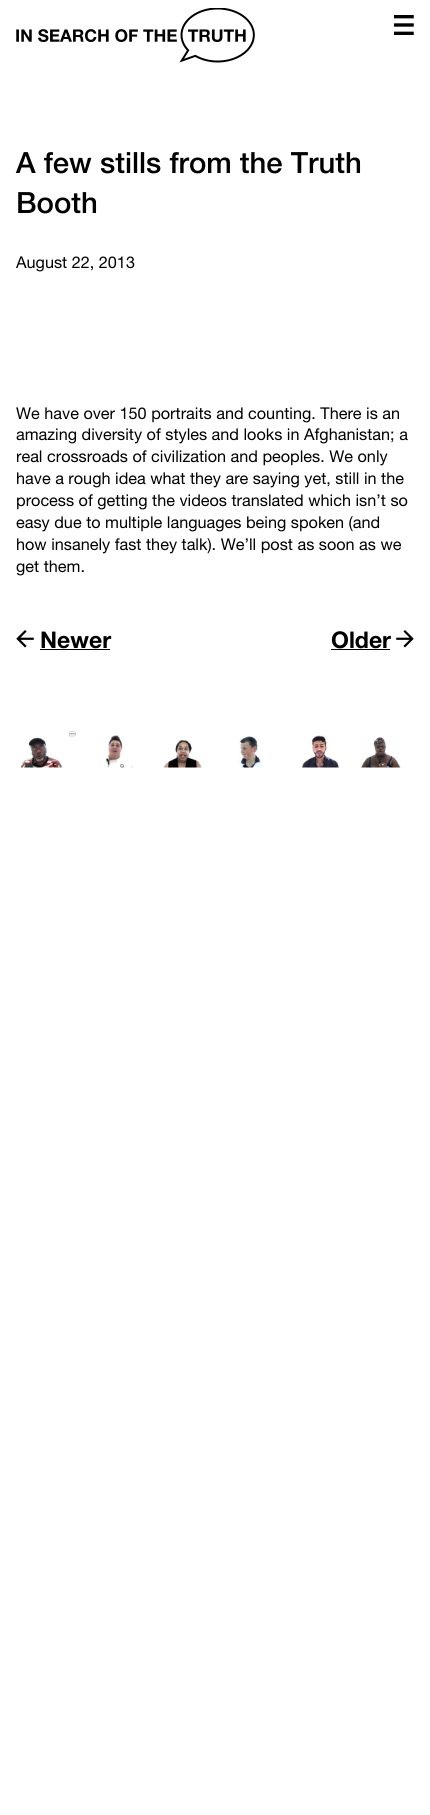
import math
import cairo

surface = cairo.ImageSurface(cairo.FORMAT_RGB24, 430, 1815)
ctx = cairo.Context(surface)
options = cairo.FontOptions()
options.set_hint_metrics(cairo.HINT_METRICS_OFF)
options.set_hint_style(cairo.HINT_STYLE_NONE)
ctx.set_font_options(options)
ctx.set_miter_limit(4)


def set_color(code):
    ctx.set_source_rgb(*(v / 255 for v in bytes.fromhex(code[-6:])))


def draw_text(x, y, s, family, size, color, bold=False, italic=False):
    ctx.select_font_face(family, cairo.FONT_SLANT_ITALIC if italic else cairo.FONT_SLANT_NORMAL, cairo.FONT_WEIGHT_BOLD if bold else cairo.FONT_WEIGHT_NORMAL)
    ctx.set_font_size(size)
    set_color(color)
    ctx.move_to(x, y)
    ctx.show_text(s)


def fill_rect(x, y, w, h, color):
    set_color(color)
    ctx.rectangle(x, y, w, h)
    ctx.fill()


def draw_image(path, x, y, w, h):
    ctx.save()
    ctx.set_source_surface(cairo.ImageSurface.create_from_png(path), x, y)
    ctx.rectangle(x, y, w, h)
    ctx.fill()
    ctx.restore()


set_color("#ffffff")
ctx.paint()
draw_image("assets/img1.png", 16, 8, 239, 55)
draw_image("assets/img2.png", 394, 15, 20, 20)
draw_text(16, 173, "A few stills from the Truth", "Helvetica Neue Medium", 29.25, "#000000")
draw_text(16, 213, "Booth", "Helvetica Neue Medium", 29.25, "#000000")
draw_text(16, 268, "August 22, 2013", "Helvetica Neue", 16.25, "#000000")
draw_text(16, 419, "We have over 150 portraits and counting. There is an", "Helvetica Neue", 16.25, "#000000")
draw_text(16, 440, "amazing diversity of styles and looks in Afghanistan; a", "Helvetica Neue", 16.25, "#000000")
draw_text(16, 462, "real crossroads of civilization and peoples. We only", "Helvetica Neue", 16.25, "#000000")
draw_text(16, 484, "have a rough idea what they are saying yet, still in the", "Helvetica Neue", 16.25, "#000000")
draw_text(16, 506, "process of getting the videos translated which isn’t so", "Helvetica Neue", 16.25, "#000000")
draw_text(16, 528, "easy due to multiple languages being spoken (and", "Helvetica Neue", 16.25, "#000000")
draw_text(16, 550, "how insanely fast they talk). We’ll post as soon as we", "Helvetica Neue", 16.25, "#000000")
draw_text(16, 572, "get them.", "Helvetica Neue", 16.25, "#000000")
draw_image("assets/img3.png", 16, 630, 18, 18)
draw_text(40, 648, "Newer", "Helvetica Neue", 23, "#000000", bold=True)
fill_rect(40, 649, 70, 1, "#000000")
draw_text(331, 648, "Older", "Helvetica Neue", 23, "#000000", bold=True)
fill_rect(331, 649, 59, 1, "#000000")
draw_image("assets/img4.png", 396, 630, 18, 18)
draw_image("assets/img5.png", 20, 730, 56, 38)
draw_image("assets/img6.png", 97, 735, 37, 33)
draw_image("assets/img7.png", 163, 740, 39, 28)
draw_image("assets/img8.png", 238, 736, 26, 32)
draw_image("assets/img9.png", 302, 735, 37, 33)
draw_image("assets/img10.png", 361, 737, 40, 31)
surface.write_to_png("output.png")
